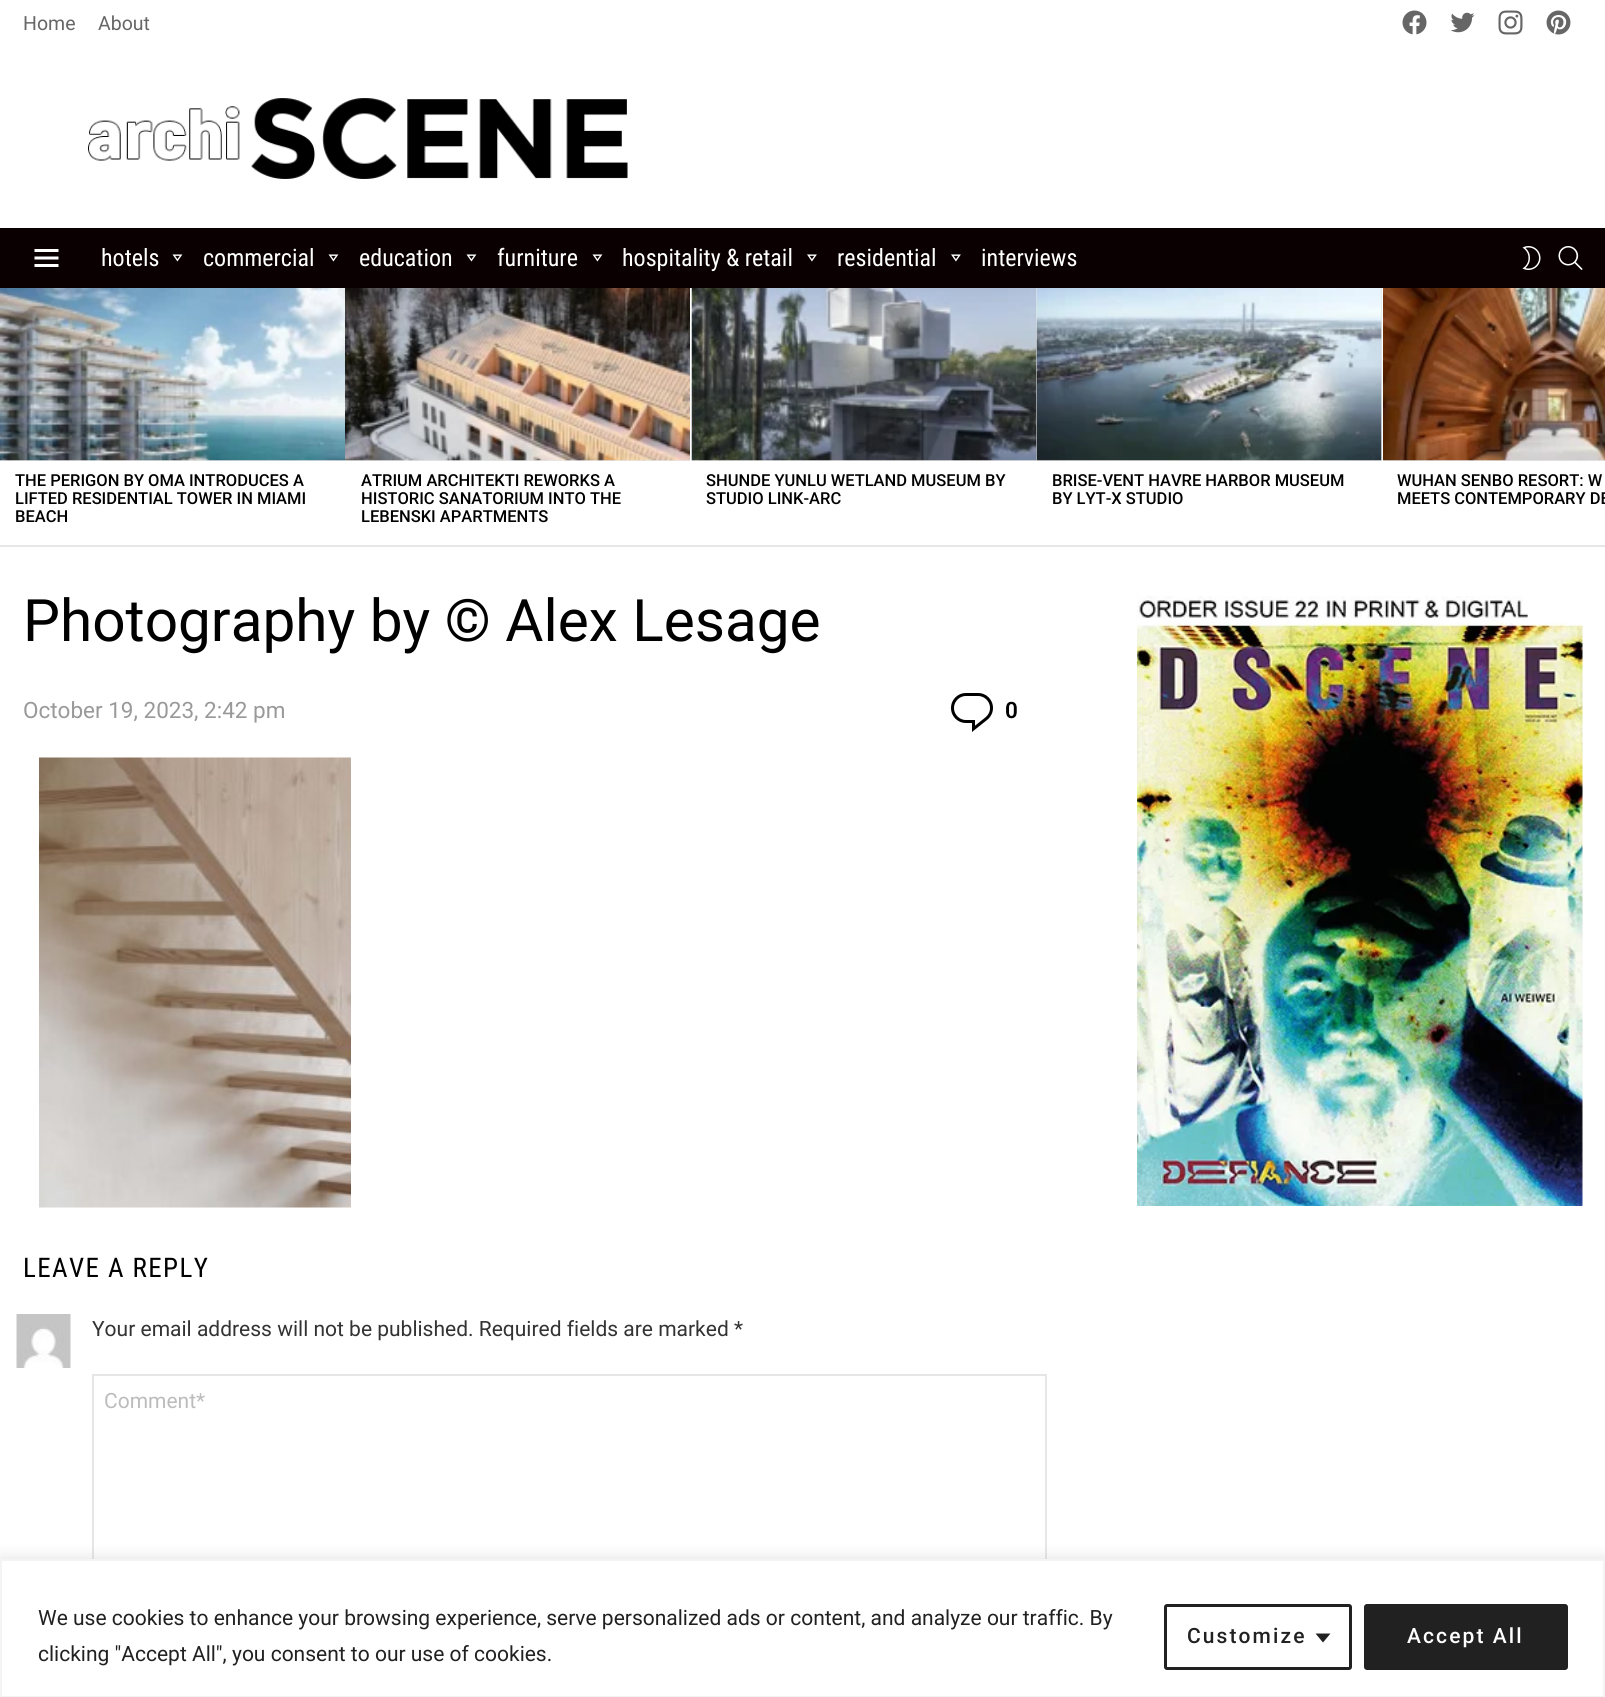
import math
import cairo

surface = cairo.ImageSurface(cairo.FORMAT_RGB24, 1605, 1697)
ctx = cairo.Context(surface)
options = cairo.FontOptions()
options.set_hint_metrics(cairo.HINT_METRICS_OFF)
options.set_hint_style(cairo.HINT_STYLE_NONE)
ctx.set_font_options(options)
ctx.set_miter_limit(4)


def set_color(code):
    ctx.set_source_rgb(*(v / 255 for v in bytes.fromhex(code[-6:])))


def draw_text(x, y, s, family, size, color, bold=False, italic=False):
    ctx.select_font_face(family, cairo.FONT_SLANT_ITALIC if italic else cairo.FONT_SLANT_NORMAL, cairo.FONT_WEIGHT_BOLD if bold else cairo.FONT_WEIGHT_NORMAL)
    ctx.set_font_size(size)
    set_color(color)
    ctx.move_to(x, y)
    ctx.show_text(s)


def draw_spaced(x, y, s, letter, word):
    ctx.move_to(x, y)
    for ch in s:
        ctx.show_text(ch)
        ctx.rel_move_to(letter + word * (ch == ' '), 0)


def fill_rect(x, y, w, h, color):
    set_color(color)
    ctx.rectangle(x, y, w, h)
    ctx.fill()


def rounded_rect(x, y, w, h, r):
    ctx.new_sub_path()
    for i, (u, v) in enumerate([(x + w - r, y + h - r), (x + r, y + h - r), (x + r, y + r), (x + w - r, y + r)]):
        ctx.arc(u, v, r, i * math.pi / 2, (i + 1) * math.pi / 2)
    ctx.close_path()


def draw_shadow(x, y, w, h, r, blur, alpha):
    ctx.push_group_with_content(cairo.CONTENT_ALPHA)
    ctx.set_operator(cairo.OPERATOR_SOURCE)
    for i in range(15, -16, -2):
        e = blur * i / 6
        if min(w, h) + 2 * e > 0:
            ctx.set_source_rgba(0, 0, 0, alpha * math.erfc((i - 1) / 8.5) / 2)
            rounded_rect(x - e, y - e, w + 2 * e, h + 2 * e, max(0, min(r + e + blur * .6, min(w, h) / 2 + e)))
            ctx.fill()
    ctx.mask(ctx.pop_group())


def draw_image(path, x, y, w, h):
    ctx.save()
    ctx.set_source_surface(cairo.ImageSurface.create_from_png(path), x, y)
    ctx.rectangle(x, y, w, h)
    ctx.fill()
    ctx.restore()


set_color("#ffffff")
ctx.paint()
draw_text(23, 30, "Home", "Roboto", 19.5, "#666666")
draw_text(98, 30, "About", "Roboto", 19.5, "#666666")
draw_image("assets/img1.png", 1402, 10, 25, 25)
draw_image("assets/img2.png", 1450, 12, 25, 21)
draw_image("assets/img3.png", 1498, 10, 25, 25)
draw_image("assets/img4.png", 1546, 10, 25, 25)
draw_image("assets/img5.png", 88, 98, 540, 81)
fill_rect(0, 228, 1605, 60, "#0a0002")
draw_image("assets/img6.png", 34, 249, 25, 18)
draw_text(101, 266, "hotels", "Roboto Condensed", 24, "#ffffff")
draw_image("assets/img7.png", 172, 254, 11, 8)
draw_text(203, 266, "commercial", "Roboto Condensed", 24, "#ffffff")
draw_image("assets/img7.png", 328, 254, 11, 8)
draw_text(359, 266, "education", "Roboto Condensed", 24, "#ffffff")
draw_image("assets/img7.png", 466, 254, 11, 8)
draw_text(497, 266, "furniture", "Roboto Condensed", 24, "#ffffff")
draw_image("assets/img7.png", 592, 254, 11, 8)
draw_text(622, 266, "hospitality & retail", "Roboto Condensed", 24, "#ffffff")
draw_image("assets/img8.png", 807, 254, 10, 8)
draw_text(837, 266, "residential", "Roboto Condensed", 24, "#ffffff")
draw_image("assets/img8.png", 951, 254, 10, 8)
draw_text(981, 266, "interviews", "Roboto Condensed", 24, "#ffffff")
draw_image("assets/img9.png", 1522, 246, 19, 24)
draw_image("assets/img10.png", 1558, 246, 25, 24)
fill_rect(0, 545, 1605, 2, "#e6e6e6")
fill_rect(0, 460, 690, 1, "#e6e6e6")
draw_image("assets/img11.png", 0, 288, 345, 173)
draw_text(15, 486, "THE PERIGON BY OMA INTRODUCES A", "Roboto Medium", 16.5, "#000000")
draw_text(15, 504, "LIFTED RESIDENTIAL TOWER IN MIAMI", "Roboto Medium", 16.5, "#000000")
draw_text(15, 522, "BEACH", "Roboto Medium", 16.5, "#000000")
draw_image("assets/img12.png", 345, 288, 345, 173)
draw_text(361, 486, "ATRIUM ARCHITEKTI REWORKS A", "Roboto Medium", 16.5, "#000000")
draw_text(361, 504, "HISTORIC SANATORIUM INTO THE", "Roboto Medium", 16.5, "#000000")
draw_text(361, 522, "LEBENSKI APARTMENTS", "Roboto Medium", 16.5, "#000000")
fill_rect(692, 288, 690, 173, "#e6e6e6")
draw_image("assets/img13.png", 691, 288, 346, 173)
draw_text(706, 486, "SHUNDE YUNLU WETLAND MUSEUM BY", "Roboto Medium", 16.5, "#000000")
draw_text(706, 504, "STUDIO LINK-ARC", "Roboto Medium", 16.5, "#000000")
draw_image("assets/img14.png", 1036, 288, 346, 173)
draw_text(1052, 486, "BRISE-VENT HAVRE HARBOR MUSEUM", "Roboto Medium", 16.5, "#000000")
draw_text(1052, 504, "BY LYT-X STUDIO", "Roboto Medium", 16.5, "#000000")
fill_rect(1383, 460, 222, 1, "#e6e6e6")
draw_image("assets/img15.png", 1383, 288, 222, 173)
draw_text(1397, 486, "WUHAN SENBO RESORT: W", "Roboto Medium", 16.5, "#000000")
draw_text(1397, 504, "MEETS CONTEMPORARY DE", "Roboto Medium", 16.5, "#000000")
draw_text(23, 641, "Photography by © Alex Lesage", "Roboto", 58.5, "#000000")
draw_text(23, 718, "October 19, 2023, 2:42 pm", "Roboto", 22.5, "#999999")
draw_image("assets/img16.png", 951, 693, 42, 39)
draw_text(1005, 718, "0", "Roboto SemiBold", 22.5, "#000000")
draw_image("assets/img17.png", 39, 757, 312, 451)
ctx.select_font_face("Roboto Condensed")
ctx.set_font_size(27)
draw_spaced(23, 1277, "LEAVE A REPLY", 1.4, 0)
draw_image("assets/img18.png", 16, 1314, 55, 54)
draw_text(92, 1336, "Your email address will not be published. Required fields are marked *", "Roboto", 21, "#333333")
ctx.rectangle(93, 1375, 953, 262)
set_color("#e6e6e6")
ctx.stroke()
draw_text(104, 1408, "Comment*", "Roboto", 21, "#bcbcbc")
draw_image("assets/img19.png", 1137, 596, 446, 610)
set_color("#acabab")
draw_shadow(0, 1557, 1605, 140, 0, 7.5, 0.3)
set_color("#ffffff")
ctx.rectangle(1, 1560, 1603, 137)
ctx.fill_preserve()
set_color("#f4f4f4")
ctx.stroke()
draw_text(38, 1625, "We use cookies to enhance your browsing experience, serve personalized ads or content, and analyze our traffic. By", "Roboto", 21, "#212121")
draw_text(38, 1661, "clicking \"Accept All\", you consent to our use of cookies.", "Roboto", 21, "#212121")
rounded_rect(1165.5, 1605.5, 185, 63, 1.5)
ctx.set_line_width(3)
ctx.stroke()
ctx.select_font_face("Roboto Medium")
draw_spaced(1187, 1643, "Customize", 2.1, 0)
ctx.new_path()
ctx.move_to(1315.5, 1633.5)
ctx.line_to(1330.5, 1633.5)
ctx.line_to(1323, 1642.5)
ctx.close_path()
ctx.fill()
rounded_rect(1365.5, 1605.5, 201, 63, 1.5)
ctx.fill_preserve()
ctx.stroke()
set_color("#ffffff")
draw_spaced(1407, 1643, "Accept All", 2.1, 0)
surface.write_to_png("output.png")
